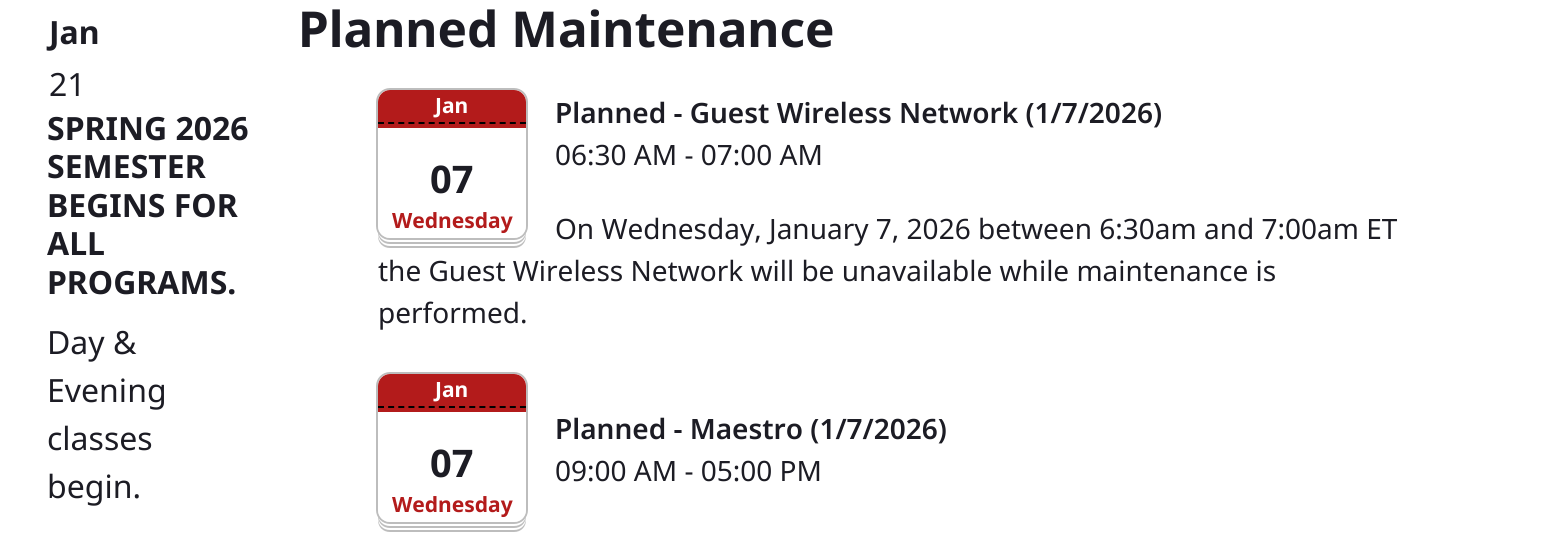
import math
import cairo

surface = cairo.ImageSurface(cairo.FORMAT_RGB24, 1555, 547)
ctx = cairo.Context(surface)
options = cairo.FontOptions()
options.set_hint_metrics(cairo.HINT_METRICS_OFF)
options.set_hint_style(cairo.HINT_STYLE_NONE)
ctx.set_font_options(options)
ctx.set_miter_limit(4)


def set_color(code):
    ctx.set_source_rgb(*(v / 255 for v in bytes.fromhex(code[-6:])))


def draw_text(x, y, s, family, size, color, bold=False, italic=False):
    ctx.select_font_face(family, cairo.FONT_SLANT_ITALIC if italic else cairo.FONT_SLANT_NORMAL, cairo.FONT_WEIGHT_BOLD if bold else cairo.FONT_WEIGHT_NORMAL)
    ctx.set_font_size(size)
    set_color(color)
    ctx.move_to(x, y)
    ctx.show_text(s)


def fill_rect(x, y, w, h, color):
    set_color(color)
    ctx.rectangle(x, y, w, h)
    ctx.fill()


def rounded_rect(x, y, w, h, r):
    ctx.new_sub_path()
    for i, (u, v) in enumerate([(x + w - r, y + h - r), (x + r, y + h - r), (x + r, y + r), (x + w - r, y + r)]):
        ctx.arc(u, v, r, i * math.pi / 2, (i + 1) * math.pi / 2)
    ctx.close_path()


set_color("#ffffff")
ctx.paint()
draw_text(49, 44, "Jan", "Noto Sans", 32, "#1c1c24", bold=True)
draw_text(49, 96, "21", "Noto Sans", 32, "#1c1c24")
draw_text(47, 140, "SPRING 2026", "Noto Sans", 32, "#1c1c24", bold=True)
draw_text(47, 178, "SEMESTER", "Noto Sans", 32, "#1c1c24", bold=True)
draw_text(47, 217, "BEGINS FOR", "Noto Sans", 32, "#1c1c24", bold=True)
draw_text(47, 255, "ALL", "Noto Sans", 32, "#1c1c24", bold=True)
draw_text(47, 294, "PROGRAMS.", "Noto Sans", 32, "#1c1c24", bold=True)
draw_text(47, 354, "Day &", "Noto Sans", 32, "#1c1c24")
draw_text(47, 402, "Evening", "Noto Sans", 32, "#1c1c24")
draw_text(47, 450, "classes", "Noto Sans", 32, "#1c1c24")
draw_text(47, 498, "begin.", "Noto Sans", 32, "#1c1c24")
draw_text(298, 47, "Planned Maintenance", "Noto Sans", 49.5, "#1c1c24", bold=True)
set_color("#bdbdbd")
ctx.new_path()
ctx.move_to(378, 225)
ctx.line_to(378, 236)
ctx.curve_to(378, 243, 383, 248, 390, 248)
ctx.line_to(514, 248)
ctx.curve_to(521, 248, 526, 243, 526, 236)
ctx.line_to(526, 225)
ctx.curve_to(526, 232, 520, 238, 513, 238)
ctx.line_to(391, 238)
ctx.curve_to(384, 238, 378, 232, 378, 225)
ctx.close_path()
ctx.fill()
set_color("#ffffff")
ctx.new_path()
ctx.move_to(378, 225)
ctx.line_to(378, 234)
ctx.curve_to(378, 241, 383, 246, 390, 246)
ctx.line_to(514, 246)
ctx.curve_to(521, 246, 526, 241, 526, 234)
ctx.line_to(526, 225)
ctx.curve_to(526, 232, 520, 238, 513, 238)
ctx.line_to(391, 238)
ctx.curve_to(384, 238, 378, 232, 378, 225)
ctx.close_path()
ctx.fill()
set_color("#bdbdbd")
ctx.new_path()
ctx.move_to(378, 225)
ctx.line_to(378, 232)
ctx.curve_to(378, 239, 383, 244, 390, 244)
ctx.line_to(514, 244)
ctx.curve_to(521, 244, 526, 239, 526, 232)
ctx.line_to(526, 225)
ctx.curve_to(526, 232, 520, 238, 513, 238)
ctx.line_to(391, 238)
ctx.curve_to(384, 238, 378, 232, 378, 225)
ctx.close_path()
ctx.fill()
set_color("#ffffff")
ctx.new_path()
ctx.move_to(378, 225)
ctx.line_to(378, 230)
ctx.curve_to(378, 237, 383, 242, 390, 242)
ctx.line_to(514, 242)
ctx.curve_to(521, 242, 526, 237, 526, 230)
ctx.line_to(526, 225)
ctx.curve_to(526, 232, 520, 238, 513, 238)
ctx.line_to(391, 238)
ctx.curve_to(384, 238, 378, 232, 378, 225)
ctx.close_path()
ctx.fill()
rounded_rect(377, 89, 150, 150, 13)
set_color("#bdbdbd")
ctx.stroke()
set_color("#ffffff")
rounded_rect(378, 90, 148, 148, 12)
ctx.fill()
fill_rect(378, 124, 148, 4, "#b31b1b")
ctx.new_path()
ctx.move_to(390, 90)
ctx.line_to(514, 90)
ctx.curve_to(520.5, 90, 526, 95.5, 526, 102)
ctx.line_to(526, 124)
ctx.line_to(378, 124)
ctx.line_to(378, 102)
ctx.curve_to(378, 95.5, 383.5, 90, 390, 90)
ctx.close_path()
ctx.fill()
ctx.new_path()
ctx.move_to(378, 123)
ctx.line_to(526, 123)
set_color("#000000")
ctx.set_dash([6, 4.14])
ctx.stroke()
draw_text(435, 113, "Jan", "Noto Sans", 21, "#ffffff", bold=True)
draw_text(430, 193, "07", "Noto Sans", 38, "#1c1c24", bold=True)
draw_text(392, 228, "Wednesday", "Noto Sans", 21, "#b31b1b", bold=True)
draw_text(555, 123, "Planned - Guest Wireless Network (1/7/2026)", "Noto Sans SemiBold", 28, "#1c1c24")
draw_text(555, 165, "06:30 AM - 07:00 AM", "Noto Sans", 28, "#1c1c24")
draw_text(555, 239, "On Wednesday, January 7, 2026 between 6:30am and 7:00am ET", "Noto Sans", 28, "#1c1c24")
draw_text(378, 281, "the Guest Wireless Network will be unavailable while maintenance is", "Noto Sans", 28, "#1c1c24")
draw_text(378, 323, "performed.", "Noto Sans", 28, "#1c1c24")
set_color("#bdbdbd")
ctx.new_path()
ctx.move_to(378, 509)
ctx.line_to(378, 520)
ctx.curve_to(378, 527, 383, 532, 390, 532)
ctx.line_to(514, 532)
ctx.curve_to(521, 532, 526, 527, 526, 520)
ctx.line_to(526, 509)
ctx.curve_to(526, 516, 520, 522, 513, 522)
ctx.line_to(391, 522)
ctx.curve_to(384, 522, 378, 516, 378, 509)
ctx.close_path()
ctx.fill()
set_color("#ffffff")
ctx.new_path()
ctx.move_to(378, 509)
ctx.line_to(378, 518)
ctx.curve_to(378, 525, 383, 530, 390, 530)
ctx.line_to(514, 530)
ctx.curve_to(521, 530, 526, 525, 526, 518)
ctx.line_to(526, 509)
ctx.curve_to(526, 516, 520, 522, 513, 522)
ctx.line_to(391, 522)
ctx.curve_to(384, 522, 378, 516, 378, 509)
ctx.close_path()
ctx.fill()
set_color("#bdbdbd")
ctx.new_path()
ctx.move_to(378, 509)
ctx.line_to(378, 516)
ctx.curve_to(378, 523, 383, 528, 390, 528)
ctx.line_to(514, 528)
ctx.curve_to(521, 528, 526, 523, 526, 516)
ctx.line_to(526, 509)
ctx.curve_to(526, 516, 520, 522, 513, 522)
ctx.line_to(391, 522)
ctx.curve_to(384, 522, 378, 516, 378, 509)
ctx.close_path()
ctx.fill()
set_color("#ffffff")
ctx.new_path()
ctx.move_to(378, 509)
ctx.line_to(378, 514)
ctx.curve_to(378, 521, 383, 526, 390, 526)
ctx.line_to(514, 526)
ctx.curve_to(521, 526, 526, 521, 526, 514)
ctx.line_to(526, 509)
ctx.curve_to(526, 516, 520, 522, 513, 522)
ctx.line_to(391, 522)
ctx.curve_to(384, 522, 378, 516, 378, 509)
ctx.close_path()
ctx.fill()
rounded_rect(377, 373, 150, 150, 13)
set_color("#bdbdbd")
ctx.set_dash([])
ctx.stroke()
set_color("#ffffff")
rounded_rect(378, 374, 148, 148, 12)
ctx.fill()
fill_rect(378, 408, 148, 4, "#b31b1b")
ctx.new_path()
ctx.move_to(390, 374)
ctx.line_to(514, 374)
ctx.curve_to(520.5, 374, 526, 379.5, 526, 386)
ctx.line_to(526, 408)
ctx.line_to(378, 408)
ctx.line_to(378, 386)
ctx.curve_to(378, 379.5, 383.5, 374, 390, 374)
ctx.close_path()
ctx.fill()
ctx.new_path()
ctx.move_to(378, 407)
ctx.line_to(526, 407)
set_color("#000000")
ctx.set_dash([6, 4.14])
ctx.stroke()
draw_text(435, 397, "Jan", "Noto Sans", 21, "#ffffff", bold=True)
draw_text(430, 477, "07", "Noto Sans", 38, "#1c1c24", bold=True)
draw_text(392, 512, "Wednesday", "Noto Sans", 21, "#b31b1b", bold=True)
draw_text(555, 439, "Planned - Maestro (1/7/2026)", "Noto Sans SemiBold", 28, "#1c1c24")
draw_text(555, 481, "09:00 AM - 05:00 PM", "Noto Sans", 28, "#1c1c24")
surface.write_to_png("output.png")
